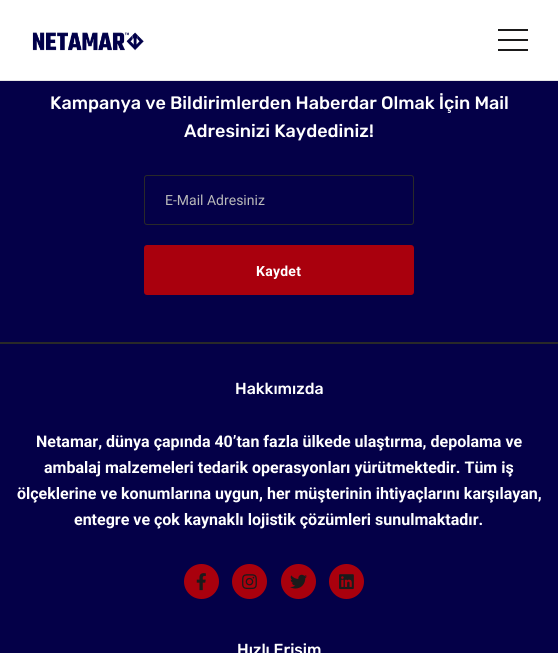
import math
import cairo

surface = cairo.ImageSurface(cairo.FORMAT_RGB24, 558, 653)
ctx = cairo.Context(surface)
options = cairo.FontOptions()
options.set_hint_metrics(cairo.HINT_METRICS_OFF)
options.set_hint_style(cairo.HINT_STYLE_NONE)
ctx.set_font_options(options)
ctx.set_miter_limit(4)


def set_color(code):
    ctx.set_source_rgb(*(v / 255 for v in bytes.fromhex(code[-6:])))


def draw_text(x, y, s, family, size, color, bold=False, italic=False):
    ctx.select_font_face(family, cairo.FONT_SLANT_ITALIC if italic else cairo.FONT_SLANT_NORMAL, cairo.FONT_WEIGHT_BOLD if bold else cairo.FONT_WEIGHT_NORMAL)
    ctx.set_font_size(size)
    set_color(color)
    ctx.move_to(x, y)
    ctx.show_text(s)


def draw_spaced(x, y, s, letter, word):
    ctx.move_to(x, y)
    for ch in s:
        ctx.show_text(ch)
        ctx.rel_move_to(letter + word * (ch == ' '), 0)


def fill_rect(x, y, w, h, color):
    set_color(color)
    ctx.rectangle(x, y, w, h)
    ctx.fill()


def rounded_rect(x, y, w, h, r):
    ctx.new_sub_path()
    for i, (u, v) in enumerate([(x + w - r, y + h - r), (x + r, y + h - r), (x + r, y + r), (x + w - r, y + r)]):
        ctx.arc(u, v, r, i * math.pi / 2, (i + 1) * math.pi / 2)
    ctx.close_path()


def draw_image(path, x, y, w, h):
    ctx.save()
    ctx.set_source_surface(cairo.ImageSurface.create_from_png(path), x, y)
    ctx.rectangle(x, y, w, h)
    ctx.fill()
    ctx.restore()


set_color("#040048")
ctx.paint()
fill_rect(0, 0, 558, 80, "#ffffff")
fill_rect(0, 80, 558, 1, "#e6e6e6")
draw_image("assets/img1.png", 32, 32, 112, 19)
fill_rect(498, 39, 30, 2, "#1b1a1a")
fill_rect(498, 29, 30, 2, "#1b1a1a")
fill_rect(498, 49, 30, 2, "#1b1a1a")
fill_rect(0, 342, 558, 2, "#292929")
draw_text(50, 109, "Kampanya ve Bildirimlerden Haberdar Olmak İçin Mail", "Rubik Medium", 18, "#ffffff")
draw_text(184, 137, "Adresinizi Kaydediniz!", "Rubik Medium", 18, "#ffffff")
rounded_rect(144.5, 175.5, 269, 49, 2.5)
set_color("#292929")
ctx.set_line_width(1)
ctx.stroke()
draw_text(165, 205, "E-Mail Adresiniz", "Roboto", 14, "#b9b9b9")
set_color("#a9000d")
rounded_rect(145, 246, 268, 48, 2)
ctx.fill_preserve()
ctx.set_line_width(2)
ctx.stroke()
ctx.select_font_face("Roboto", cairo.FONT_SLANT_NORMAL, cairo.FONT_WEIGHT_BOLD)
set_color("#ffffff")
draw_spaced(256, 276, "Kaydet", 0.25, 0)
draw_text(235, 394, "Hakkımızda", "Rubik Medium", 16, "#ffffff")
draw_text(36, 447, "Netamar, dünya çapında 40’tan fazla ülkede ulaştırma, depolama ve", "Roboto", 16, "#ffffff", bold=True)
draw_text(44, 473, "ambalaj malzemeleri tedarik operasyonları yürütmektedir. Tüm iş", "Roboto", 16, "#ffffff", bold=True)
draw_text(17, 499, "ölçeklerine ve konumlarına uygun, her müşterinin ihtiyaçlarını karşılayan,", "Roboto", 16, "#ffffff", bold=True)
draw_text(74, 525, "entegre ve çok kaynaklı lojistik çözümleri sunulmaktadır.", "Roboto", 16, "#ffffff", bold=True)
set_color("#a9000d")
ctx.new_path()
ctx.arc(201.5, 581.5, 17.5, 0, 2 * math.pi)
ctx.fill()
draw_image("assets/img2.png", 196, 573, 10, 18)
ctx.arc(249.5, 581.5, 17.5, 0, 2 * math.pi)
ctx.fill()
draw_image("assets/img3.png", 242, 574, 15, 16)
ctx.arc(298.5, 581.5, 17.5, 0, 2 * math.pi)
ctx.fill()
draw_image("assets/img4.png", 290, 574, 17, 15)
ctx.arc(346.5, 581.5, 17.5, 0, 2 * math.pi)
ctx.fill()
draw_image("assets/img5.png", 339, 574, 15, 16)
draw_text(237, 655, "Hızlı Erişim", "Rubik Medium", 16, "#ffffff")
surface.write_to_png("output.png")
